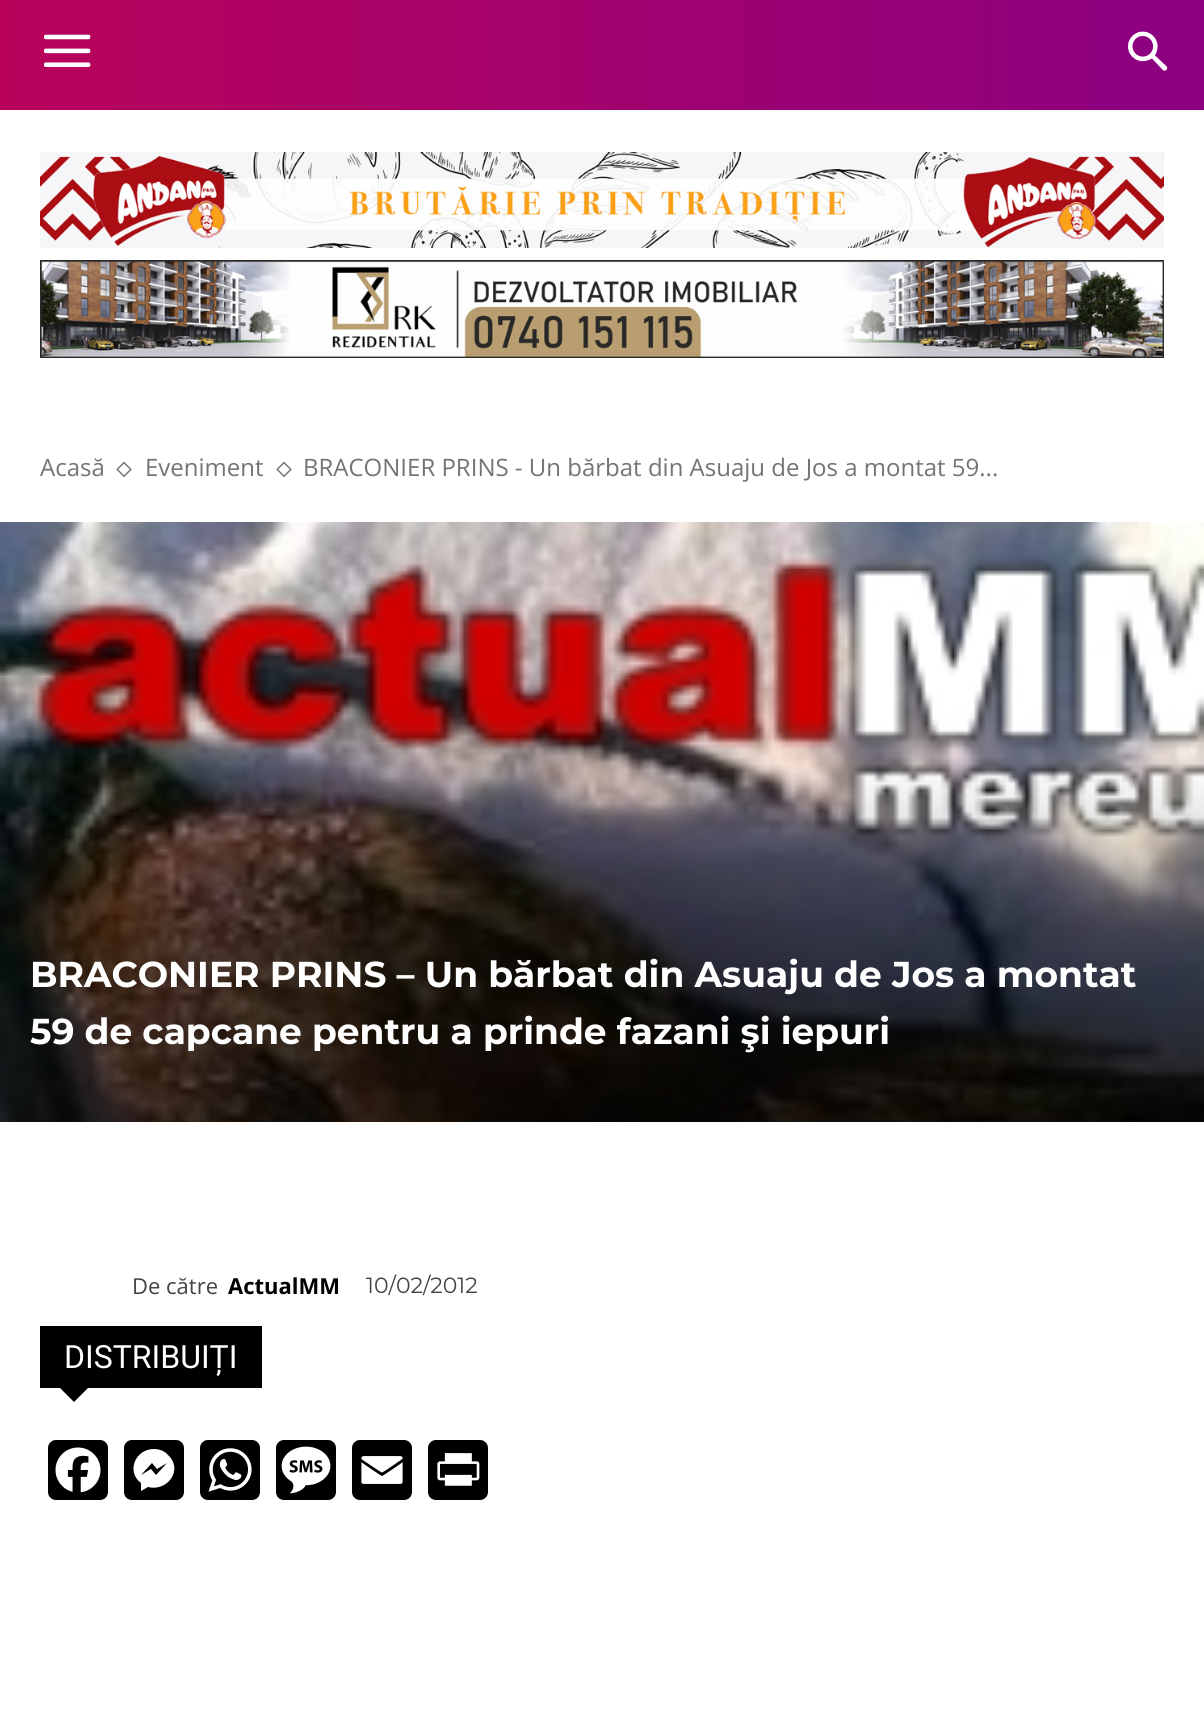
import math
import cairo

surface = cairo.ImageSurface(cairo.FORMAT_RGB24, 1204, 1721)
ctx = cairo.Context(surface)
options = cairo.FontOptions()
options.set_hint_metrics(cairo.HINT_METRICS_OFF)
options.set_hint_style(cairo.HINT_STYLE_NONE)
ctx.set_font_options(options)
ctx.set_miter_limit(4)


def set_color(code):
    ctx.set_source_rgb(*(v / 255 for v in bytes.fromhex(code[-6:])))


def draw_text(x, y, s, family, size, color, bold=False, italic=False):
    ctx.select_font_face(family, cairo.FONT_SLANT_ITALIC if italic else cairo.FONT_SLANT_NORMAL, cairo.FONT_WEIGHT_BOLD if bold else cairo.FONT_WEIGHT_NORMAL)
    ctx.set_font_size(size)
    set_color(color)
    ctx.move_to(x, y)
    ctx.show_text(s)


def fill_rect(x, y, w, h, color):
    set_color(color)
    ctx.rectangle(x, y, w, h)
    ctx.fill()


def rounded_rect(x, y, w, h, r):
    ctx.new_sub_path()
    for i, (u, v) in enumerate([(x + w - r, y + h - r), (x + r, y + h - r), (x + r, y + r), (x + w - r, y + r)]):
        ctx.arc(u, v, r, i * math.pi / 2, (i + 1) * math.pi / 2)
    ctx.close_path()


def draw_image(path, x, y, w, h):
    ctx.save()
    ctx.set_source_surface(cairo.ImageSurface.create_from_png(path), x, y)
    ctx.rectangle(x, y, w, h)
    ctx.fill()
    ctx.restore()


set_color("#ffffff")
ctx.paint()
gradient = cairo.LinearGradient(0, 55, 1204, 55)
gradient.add_color_stop_rgba(0, 0.725, 0.012, 0.357, 1)
gradient.add_color_stop_rgba(1, 0.545, 0, 0.506, 1)
ctx.set_source(gradient)
ctx.rectangle(0, 0, 1204, 110)
ctx.fill()
draw_image("assets/img1.png", 44, 34, 47, 33)
draw_image("assets/img2.png", 1128, 31, 40, 40)
draw_image("assets/img3.png", 40, 152, 1124, 96)
draw_image("assets/img4.png", 40, 260, 1124, 98)
draw_text(40, 476, "Acasă", "Open Sans", 24, "#747474")
draw_image("assets/img5.png", 116, 461, 16, 17)
draw_text(145, 476, "Eveniment", "Open Sans", 24, "#747474")
draw_image("assets/img5.png", 276, 461, 16, 17)
draw_text(303, 476, "BRACONIER PRINS - Un bărbat din Asuaju de Jos a montat 59...", "Open Sans", 24, "#747474")
draw_image("assets/img6.png", 0, 522, 1204, 600)
draw_text(30, 987, "BRACONIER PRINS – Un bărbat din Asuaju de Jos a montat", "Montserrat", 36, "#ffffff", bold=True)
draw_text(30, 1044, "59 de capcane pentru a prinde fazani şi iepuri", "Montserrat", 36, "#ffffff", bold=True)
draw_text(132, 1294, "De către", "Open Sans", 22, "#444444")
draw_text(228, 1294, "ActualMM", "Open Sans", 22, "#000000", bold=True)
draw_text(366, 1293, "10/02/2012", "Montserrat", 22, "#444444")
fill_rect(40, 1326, 222, 62, "#000000")
draw_text(64, 1368, "DISTRIBUIȚI", "Roboto", 32, "#ffffff")
set_color("#000000")
ctx.new_path()
ctx.move_to(60, 1388)
ctx.line_to(88, 1388)
ctx.line_to(74, 1402)
ctx.close_path()
ctx.fill()
rounded_rect(48, 1440, 60, 60, 8)
ctx.fill()
draw_image("assets/img7.png", 55, 1447, 46, 46)
rounded_rect(124, 1440, 60, 60, 8)
ctx.fill()
set_color("#ffffff")
ctx.new_path()
ctx.move_to(154, 1449)
ctx.curve_to(135, 1449, 126, 1472, 141, 1483)
ctx.line_to(141, 1491)
ctx.line_to(148, 1487)
ctx.curve_to(167, 1492, 184, 1470, 168, 1455)
ctx.curve_to(165, 1451, 159, 1449, 154, 1449)
ctx.move_to(156, 1475)
ctx.line_to(151, 1469)
ctx.line_to(141, 1475)
ctx.line_to(152, 1463)
ctx.line_to(157, 1469)
ctx.line_to(167, 1463)
ctx.close_path()
ctx.fill()
set_color("#000000")
rounded_rect(200, 1440, 60, 60, 8)
ctx.fill()
draw_image("assets/img8.png", 208, 1448, 44, 44)
rounded_rect(276, 1440, 60, 60, 8)
ctx.fill()
draw_image("assets/img9.png", 281, 1446, 50, 48)
rounded_rect(352, 1440, 60, 60, 8)
ctx.fill()
draw_image("assets/img10.png", 361, 1456, 42, 28)
rounded_rect(428, 1440, 60, 60, 8)
ctx.fill()
draw_image("assets/img11.png", 437, 1453, 43, 33)
surface.write_to_png("output.png")
